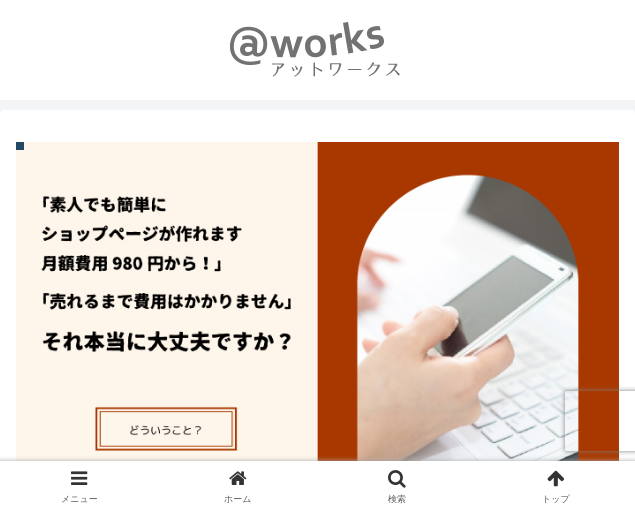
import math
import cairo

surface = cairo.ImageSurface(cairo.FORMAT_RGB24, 635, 511)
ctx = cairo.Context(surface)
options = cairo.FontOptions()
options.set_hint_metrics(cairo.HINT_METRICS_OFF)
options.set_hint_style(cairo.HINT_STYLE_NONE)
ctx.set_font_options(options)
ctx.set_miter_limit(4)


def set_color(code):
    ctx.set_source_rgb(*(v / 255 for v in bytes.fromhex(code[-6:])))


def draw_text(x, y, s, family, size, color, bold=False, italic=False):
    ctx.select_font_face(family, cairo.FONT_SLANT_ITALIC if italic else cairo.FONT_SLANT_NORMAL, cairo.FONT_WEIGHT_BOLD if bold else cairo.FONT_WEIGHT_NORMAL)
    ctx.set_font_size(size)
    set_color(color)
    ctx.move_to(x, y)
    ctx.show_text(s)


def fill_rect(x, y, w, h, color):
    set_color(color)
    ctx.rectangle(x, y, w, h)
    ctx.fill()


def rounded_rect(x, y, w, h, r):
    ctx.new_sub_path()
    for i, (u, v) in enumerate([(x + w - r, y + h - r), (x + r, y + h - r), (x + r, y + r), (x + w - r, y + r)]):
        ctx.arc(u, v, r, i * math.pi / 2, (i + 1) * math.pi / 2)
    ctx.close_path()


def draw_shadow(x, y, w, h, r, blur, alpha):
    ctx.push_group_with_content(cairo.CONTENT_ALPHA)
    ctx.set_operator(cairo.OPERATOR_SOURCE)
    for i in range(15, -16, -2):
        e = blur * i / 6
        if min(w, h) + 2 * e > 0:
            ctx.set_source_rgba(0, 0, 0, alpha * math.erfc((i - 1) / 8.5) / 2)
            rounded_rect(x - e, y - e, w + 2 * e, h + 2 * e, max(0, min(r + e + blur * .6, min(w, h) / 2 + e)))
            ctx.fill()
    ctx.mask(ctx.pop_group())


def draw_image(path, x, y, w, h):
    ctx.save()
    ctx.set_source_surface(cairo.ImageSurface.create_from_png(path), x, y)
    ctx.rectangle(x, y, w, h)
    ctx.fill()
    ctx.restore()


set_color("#f4f5f7")
ctx.paint()
set_color("#ffffff")
rounded_rect(0, 110, 635, 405, 4)
ctx.fill()
draw_image("assets/img2.png", 16, 142, 603, 319)
ctx.save()
ctx.set_fill_rule(cairo.FILL_RULE_EVEN_ODD)
ctx.new_path()
ctx.move_to(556, 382)
ctx.line_to(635, 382)
ctx.line_to(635, 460)
ctx.line_to(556, 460)
ctx.close_path()
ctx.move_to(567, 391)
ctx.line_to(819, 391)
ctx.curve_to(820, 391, 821, 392, 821, 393)
ctx.line_to(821, 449)
ctx.curve_to(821, 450, 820, 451, 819, 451)
ctx.line_to(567, 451)
ctx.curve_to(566, 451, 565, 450, 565, 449)
ctx.line_to(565, 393)
ctx.curve_to(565, 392, 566, 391, 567, 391)
ctx.close_path()
ctx.clip()
set_color("#808080")
draw_shadow(565, 391, 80, 60, 2, 2.5, 1)
ctx.restore()
fill_rect(0, 0, 635, 100, "#ffffff")
draw_image("assets/img1.png", 230, 22, 170, 55)
fill_rect(16, 142, 8, 8, "#224963")
set_color("#a9a9a9")
draw_shadow(0, 461, 635, 50, 0, 2.5, 1)
fill_rect(0, 461, 635, 50, "#ffffff")
draw_image("assets/img3.png", 71, 471, 17, 14)
draw_text(61, 502, "メニュー", "WenQuanYi Zen Hei Medium", 9, "#5c5c5c")
draw_image("assets/img4.png", 229, 471, 18, 14)
draw_text(224, 502, "ホーム", "WenQuanYi Zen Hei Medium", 9, "#5c5c5c")
draw_image("assets/img5.png", 388, 470, 18, 18)
draw_text(388, 502, "検索", "WenQuanYi Zen Hei Medium", 9, "#5c5c5c")
draw_image("assets/img6.png", 547, 470, 17, 17)
draw_text(542, 502, "トップ", "WenQuanYi Zen Hei Medium", 9, "#5c5c5c")
surface.write_to_png("output.png")
